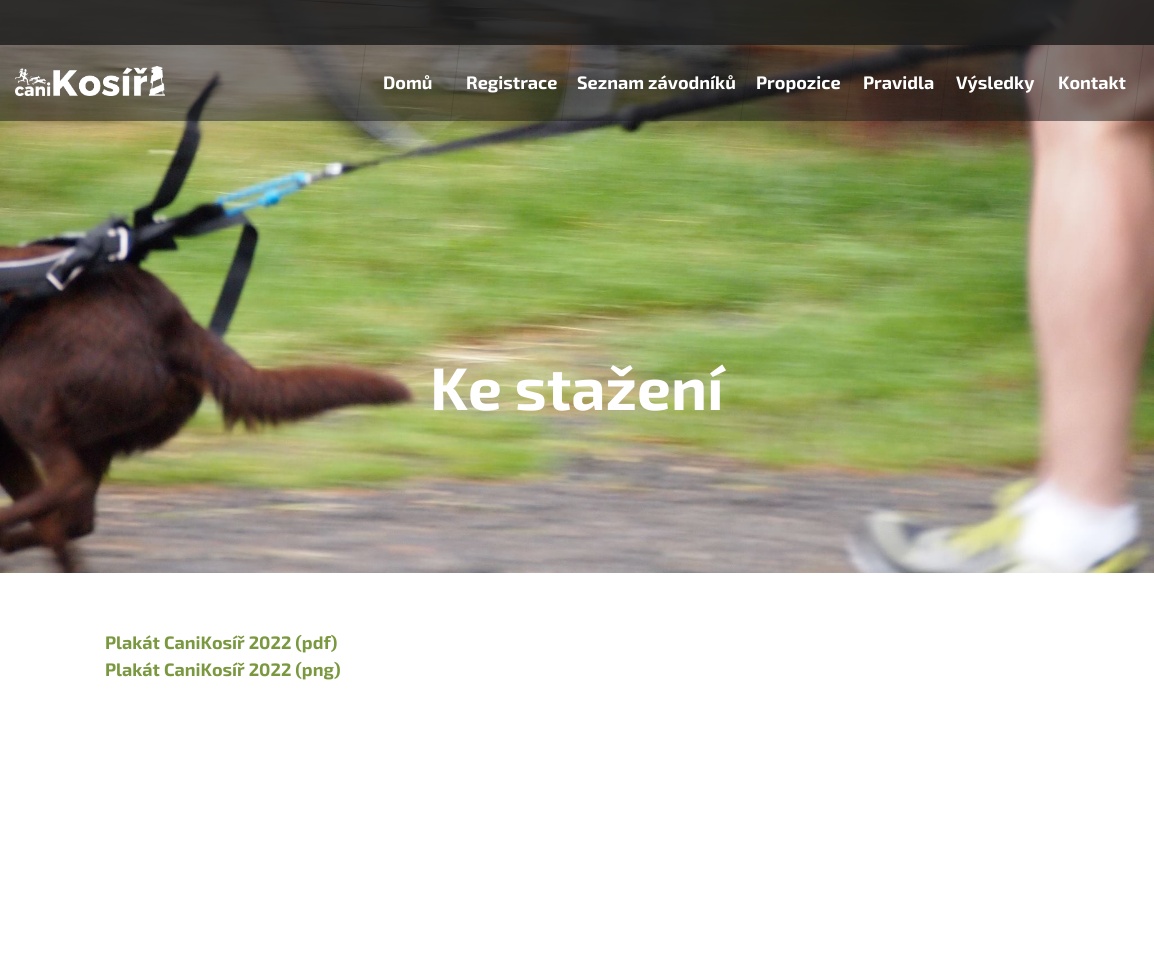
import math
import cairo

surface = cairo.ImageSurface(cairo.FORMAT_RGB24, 1154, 978)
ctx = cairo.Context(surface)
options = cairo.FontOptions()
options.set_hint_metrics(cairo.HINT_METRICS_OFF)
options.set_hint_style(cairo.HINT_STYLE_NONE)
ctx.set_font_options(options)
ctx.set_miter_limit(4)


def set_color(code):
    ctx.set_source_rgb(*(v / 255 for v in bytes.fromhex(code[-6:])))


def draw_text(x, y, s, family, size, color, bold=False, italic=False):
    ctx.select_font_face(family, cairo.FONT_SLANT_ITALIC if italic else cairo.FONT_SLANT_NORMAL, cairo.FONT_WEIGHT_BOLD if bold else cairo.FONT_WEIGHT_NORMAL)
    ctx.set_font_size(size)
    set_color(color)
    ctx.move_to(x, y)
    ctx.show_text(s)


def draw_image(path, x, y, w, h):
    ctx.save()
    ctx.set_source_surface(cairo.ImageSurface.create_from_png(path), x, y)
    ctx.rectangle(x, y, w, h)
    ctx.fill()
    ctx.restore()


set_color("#ffffff")
ctx.paint()
draw_image("assets/img2.png", 0, 0, 1154, 573)
ctx.set_source_rgba(0.106, 0.106, 0.106, 0.9)
ctx.rectangle(0, 0, 1154, 45)
ctx.fill()
ctx.set_source_rgba(0.106, 0.106, 0.106, 0.5)
ctx.rectangle(0, 45, 1154, 76)
ctx.fill()
draw_image("assets/img1.png", 15, 66, 150, 30)
ctx.set_source_rgba(0, 0, 0, 0.11)
ctx.new_path()
ctx.move_to(459, 45)
ctx.line_to(460, 45)
ctx.line_to(451, 121)
ctx.line_to(450, 121)
ctx.close_path()
ctx.fill()
ctx.new_path()
ctx.move_to(365, 45)
ctx.line_to(366, 45)
ctx.line_to(357, 121)
ctx.line_to(356, 121)
ctx.close_path()
ctx.fill()
draw_text(383, 89, "Domů", "Exo 2", 18, "#ffffff", bold=True)
draw_text(466, 89, "Registrace", "Exo 2", 18, "#ffffff", bold=True)
ctx.set_source_rgba(0, 0, 0, 0.11)
ctx.new_path()
ctx.move_to(571, 45)
ctx.line_to(572, 45)
ctx.line_to(562, 121)
ctx.line_to(561, 121)
ctx.close_path()
ctx.fill()
draw_text(577, 89, "Seznam závodníků", "Exo 2", 18, "#ffffff", bold=True)
ctx.set_source_rgba(0, 0, 0, 0.11)
ctx.new_path()
ctx.move_to(750, 45)
ctx.line_to(751, 45)
ctx.line_to(741, 121)
ctx.line_to(740, 121)
ctx.close_path()
ctx.fill()
draw_text(756, 89, "Propozice", "Exo 2", 18, "#ffffff", bold=True)
ctx.set_source_rgba(0, 0, 0, 0.11)
ctx.new_path()
ctx.move_to(854, 45)
ctx.line_to(855, 45)
ctx.line_to(846, 121)
ctx.line_to(845, 121)
ctx.close_path()
ctx.fill()
draw_text(863, 89, "Pravidla", "Exo 2", 18, "#ffffff", bold=True)
ctx.set_source_rgba(0, 0, 0, 0.11)
ctx.new_path()
ctx.move_to(949, 45)
ctx.line_to(950, 45)
ctx.line_to(941, 121)
ctx.line_to(940, 121)
ctx.close_path()
ctx.fill()
draw_text(956, 89, "Výsledky", "Exo 2", 18, "#ffffff", bold=True)
ctx.set_source_rgba(0, 0, 0, 0.11)
ctx.new_path()
ctx.move_to(1048, 45)
ctx.line_to(1049, 45)
ctx.line_to(1039, 121)
ctx.line_to(1038, 121)
ctx.close_path()
ctx.fill()
draw_text(1058, 89, "Kontakt", "Exo 2", 18, "#ffffff", bold=True)
ctx.set_source_rgba(0, 0, 0, 0.11)
ctx.new_path()
ctx.move_to(1143, 45)
ctx.line_to(1144, 45)
ctx.line_to(1134, 121)
ctx.line_to(1133, 121)
ctx.close_path()
ctx.fill()
draw_text(430, 410, "Ke stažení", "Exo 2", 60, "#ffffff", bold=True)
draw_text(105, 649, "Plakát CaniKosíř 2022 (pdf)", "Exo 2", 18, "#7a983f", bold=True)
draw_text(105, 676, "Plakát CaniKosíř 2022 (png)", "Exo 2", 18, "#7a983f", bold=True)
surface.write_to_png("output.png")
